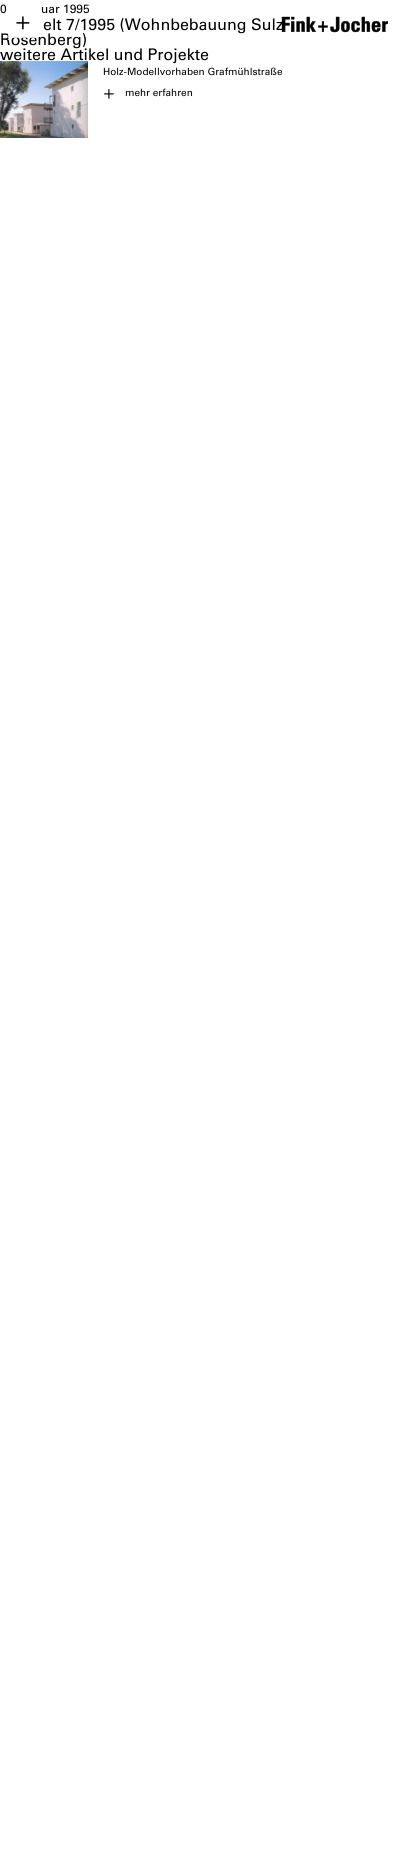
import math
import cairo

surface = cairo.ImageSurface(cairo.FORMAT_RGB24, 395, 1855)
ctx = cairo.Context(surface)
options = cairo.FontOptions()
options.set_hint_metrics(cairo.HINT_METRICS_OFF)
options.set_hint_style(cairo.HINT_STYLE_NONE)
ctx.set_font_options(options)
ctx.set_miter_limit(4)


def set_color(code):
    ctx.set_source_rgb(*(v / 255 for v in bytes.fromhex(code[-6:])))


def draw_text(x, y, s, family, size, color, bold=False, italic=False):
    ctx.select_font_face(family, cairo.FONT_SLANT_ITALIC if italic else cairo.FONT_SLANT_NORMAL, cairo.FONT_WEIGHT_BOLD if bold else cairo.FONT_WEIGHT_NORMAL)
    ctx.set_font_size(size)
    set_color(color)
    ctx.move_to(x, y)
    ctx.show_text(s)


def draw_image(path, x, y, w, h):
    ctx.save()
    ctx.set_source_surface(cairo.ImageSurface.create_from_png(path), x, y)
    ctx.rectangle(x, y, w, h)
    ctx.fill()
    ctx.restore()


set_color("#ffffff")
ctx.paint()
draw_text(0, 13, "0", "Univers", 12, "#000000")
draw_text(41, 13, "uar 1995", "Univers", 12, "#000000")
draw_text(43, 30, "elt 7/1995 (Wohnbebauung Sulz", "Univers", 16, "#000000")
draw_text(0, 45, "Rosenberg)", "Univers", 16, "#000000")
draw_text(0, 60, "weitere Artikel und Projekte", "Univers", 16, "#000000")
draw_image("assets/img1.png", 0, 61, 88, 77)
draw_text(103, 75, "Holz-Modellvorhaben Grafmühlstraße", "Univers", 10, "#000000")
draw_image("assets/img2.png", 104, 89, 10, 10)
draw_text(125, 96, "mehr erfahren", "Univers", 10, "#000000")
ctx.set_source_rgba(1, 1, 1, 0.8)
ctx.rectangle(8, 34, 28, 4)
ctx.fill()
draw_image("assets/img3.png", 16, 16, 14, 14)
draw_image("assets/img4.png", 281, 16, 107, 17)
surface.write_to_png("output.png")
